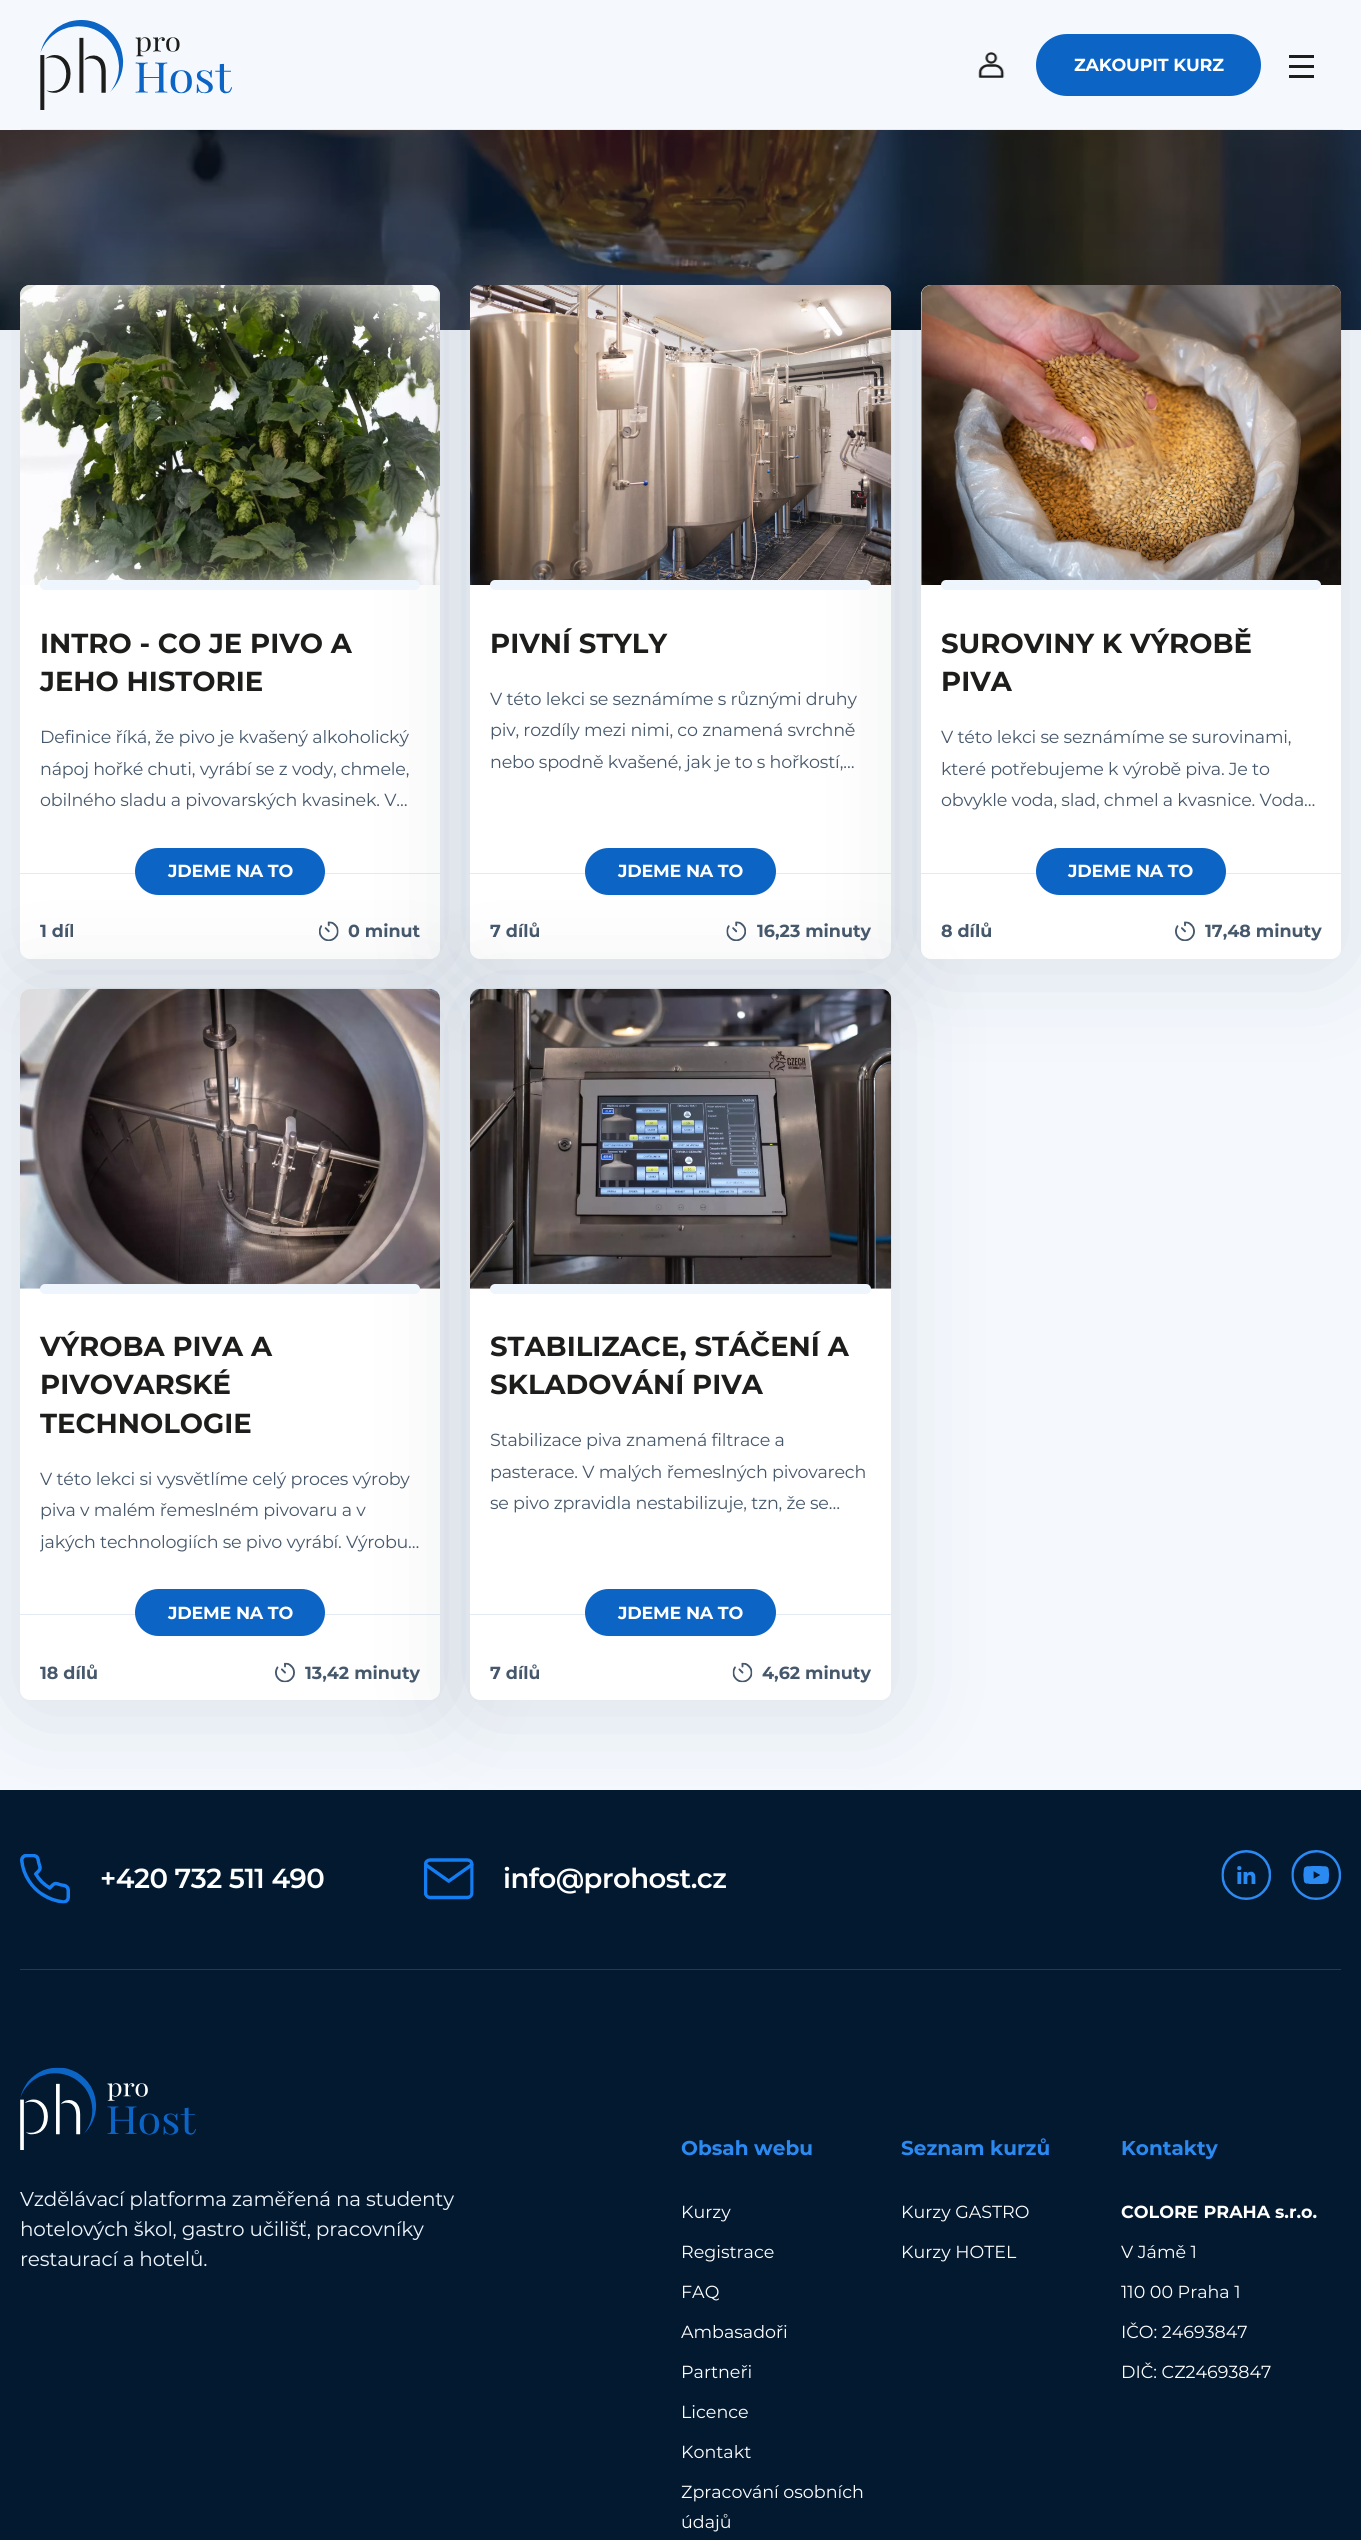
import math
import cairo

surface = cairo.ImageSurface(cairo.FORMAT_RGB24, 1361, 2540)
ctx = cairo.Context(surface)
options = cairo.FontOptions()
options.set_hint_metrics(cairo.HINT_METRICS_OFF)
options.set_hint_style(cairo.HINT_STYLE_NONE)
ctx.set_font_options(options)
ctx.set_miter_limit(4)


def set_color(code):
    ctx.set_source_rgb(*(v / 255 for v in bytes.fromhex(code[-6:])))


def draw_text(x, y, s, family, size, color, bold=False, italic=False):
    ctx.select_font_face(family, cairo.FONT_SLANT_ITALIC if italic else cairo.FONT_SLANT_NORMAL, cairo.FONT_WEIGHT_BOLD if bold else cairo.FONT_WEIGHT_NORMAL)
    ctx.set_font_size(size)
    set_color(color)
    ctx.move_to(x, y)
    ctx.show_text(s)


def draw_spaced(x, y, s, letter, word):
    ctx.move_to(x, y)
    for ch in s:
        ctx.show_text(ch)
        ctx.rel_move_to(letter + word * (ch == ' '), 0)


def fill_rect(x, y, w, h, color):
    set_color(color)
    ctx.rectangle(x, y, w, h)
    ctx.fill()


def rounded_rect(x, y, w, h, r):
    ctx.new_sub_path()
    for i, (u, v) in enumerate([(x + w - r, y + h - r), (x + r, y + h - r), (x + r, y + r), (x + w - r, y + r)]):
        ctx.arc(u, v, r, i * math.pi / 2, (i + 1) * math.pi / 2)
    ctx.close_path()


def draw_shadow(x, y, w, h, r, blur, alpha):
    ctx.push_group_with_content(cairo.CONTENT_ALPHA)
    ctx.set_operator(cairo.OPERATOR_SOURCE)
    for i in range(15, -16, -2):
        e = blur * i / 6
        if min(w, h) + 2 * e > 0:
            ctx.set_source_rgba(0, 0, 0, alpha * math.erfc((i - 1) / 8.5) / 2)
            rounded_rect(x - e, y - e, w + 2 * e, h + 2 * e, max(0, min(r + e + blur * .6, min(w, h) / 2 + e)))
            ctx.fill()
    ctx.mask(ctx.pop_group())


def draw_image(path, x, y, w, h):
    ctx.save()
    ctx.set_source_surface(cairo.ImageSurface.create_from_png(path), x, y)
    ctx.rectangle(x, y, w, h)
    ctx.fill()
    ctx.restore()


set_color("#f5f9fe")
ctx.paint()
draw_image("assets/img1.png", 40, 20, 192, 90)
draw_image("assets/img2.png", 978, 52, 27, 26)
set_color("#0c64c5")
rounded_rect(1036, 34, 225, 62, 31)
ctx.fill()
ctx.select_font_face("Montserrat", cairo.FONT_SLANT_NORMAL, cairo.FONT_WEIGHT_BOLD)
ctx.set_font_size(17.5)
set_color("#ffffff")
draw_spaced(1074, 71, "ZAKOUPIT KURZ", -0.2, 0)
fill_rect(1289, 55, 25, 3, "#1d1d1b")
fill_rect(1289, 65, 25, 3, "#1d1d1b")
fill_rect(1289, 75, 25, 3, "#1d1d1b")
fill_rect(21, 129, 1322, 1, "#e4eaf2")
draw_image("assets/img3.png", 0, 130, 1361, 200)
set_color("#031930")
draw_shadow(20, 293, 420, 673, 10, 52.5, 0.12)
set_color("#ffffff")
rounded_rect(20, 285, 420, 674, 10)
ctx.fill()
draw_image("assets/img4.png", 20, 285, 420, 300)
fill_rect(20, 873, 420, 1, "#e4eaf2")
set_color("#0c64c5")
rounded_rect(135, 848, 190, 47, 23.5)
ctx.fill()
set_color("#031930")
draw_shadow(470, 293, 421, 673, 10, 52.5, 0.12)
set_color("#eef5fd")
rounded_rect(40, 580, 380, 10, 5)
ctx.fill()
draw_text(40, 653, "INTRO - CO JE PIVO A", "Montserrat", 27.5, "#1d1d1b", bold=True)
draw_text(40, 691, "JEHO HISTORIE", "Montserrat", 27.5, "#1d1d1b", bold=True)
ctx.select_font_face("Montserrat")
ctx.set_font_size(17.5)
set_color("#46586b")
draw_spaced(40, 743, "Definice říká, že pivo je kvašený alkoholický", -0.2, 0)
draw_spaced(40, 775, "nápoj hořké chuti, vyrábí se z vody, chmele,", -0.2, 0)
draw_spaced(40, 806, "obilného sladu a pivovarských kvasinek. V…", -0.2, 0)
ctx.select_font_face("Montserrat", cairo.FONT_SLANT_NORMAL, cairo.FONT_WEIGHT_BOLD)
set_color("#ffffff")
draw_spaced(168, 877, "JDEME NA TO", -0.2, 0)
draw_text(40, 937, "1 díl", "Montserrat", 17.5, "#46586b", bold=True)
set_color("#ffffff")
rounded_rect(470, 285, 421, 674, 10)
ctx.fill()
fill_rect(470, 873, 421, 1, "#e4eaf2")
set_color("#0c64c5")
rounded_rect(585, 848, 191, 47, 23.5)
ctx.fill()
set_color("#031930")
draw_shadow(20, 996, 420, 712, 10, 52.5, 0.12)
draw_image("assets/img6.png", 470, 285, 422, 300)
draw_shadow(921, 293, 420, 673, 10, 52.5, 0.12)
set_color("#ffffff")
rounded_rect(921, 285, 420, 674, 10)
ctx.fill()
fill_rect(921, 873, 420, 1, "#e4eaf2")
set_color("#0c64c5")
rounded_rect(1036, 848, 190, 47, 23.5)
ctx.fill()
set_color("#ffffff")
rounded_rect(20, 989, 420, 711, 10)
ctx.fill()
draw_image("assets/img10.png", 20, 988, 420, 301)
fill_rect(20, 1614, 420, 1, "#e4eaf2")
set_color("#0c64c5")
rounded_rect(135, 1589, 190, 47, 23.5)
ctx.fill()
set_color("#031930")
draw_shadow(470, 996, 421, 712, 10, 52.5, 0.12)
draw_image("assets/img5.png", 319, 921, 20, 20)
draw_text(348, 937, "0 minut", "Montserrat", 17.5, "#46586b", bold=True)
set_color("#eef5fd")
rounded_rect(490, 580, 381, 10, 5)
ctx.fill()
draw_text(490, 653, "PIVNÍ STYLY", "Montserrat", 27.5, "#1d1d1b", bold=True)
ctx.select_font_face("Montserrat")
ctx.set_font_size(17.5)
set_color("#46586b")
draw_spaced(490, 705, "V této lekci se seznámíme s různými druhy", -0.2, 0)
draw_spaced(490, 736, "piv, rozdíly mezi nimi, co znamená svrchně", -0.2, 0)
draw_spaced(490, 768, "nebo spodně kvašené, jak je to s hořkostí,…", -0.2, 0)
ctx.select_font_face("Montserrat", cairo.FONT_SLANT_NORMAL, cairo.FONT_WEIGHT_BOLD)
set_color("#ffffff")
draw_spaced(618, 877, "JDEME NA TO", -0.2, 0)
draw_text(490, 937, "7 dílů", "Montserrat", 17.5, "#46586b", bold=True)
draw_image("assets/img7.png", 726, 921, 20, 20)
draw_text(757, 937, "16,23 minuty", "Montserrat", 17.5, "#46586b", bold=True)
draw_image("assets/img8.png", 921, 285, 421, 300)
set_color("#eef5fd")
rounded_rect(941, 580, 380, 10, 5)
ctx.fill()
draw_text(941, 653, "SUROVINY K VÝROBĚ", "Montserrat", 27.5, "#1d1d1b", bold=True)
draw_text(941, 691, "PIVA", "Montserrat", 27.5, "#1d1d1b", bold=True)
ctx.select_font_face("Montserrat")
ctx.set_font_size(17.5)
set_color("#46586b")
draw_spaced(941, 743, "V této lekci se seznámíme se surovinami,", -0.2, 0)
draw_spaced(941, 775, "které potřebujeme k výrobě piva. Je to", -0.2, 0)
draw_spaced(941, 806, "obvykle voda, slad, chmel a kvasnice. Voda…", -0.2, 0)
ctx.select_font_face("Montserrat", cairo.FONT_SLANT_NORMAL, cairo.FONT_WEIGHT_BOLD)
set_color("#ffffff")
draw_spaced(1068, 877, "JDEME NA TO", -0.2, 0)
draw_text(941, 937, "8 dílů", "Montserrat", 17.5, "#46586b", bold=True)
draw_image("assets/img9.png", 1175, 921, 20, 20)
draw_text(1205, 937, "17,48 minuty", "Montserrat", 17.5, "#46586b", bold=True)
set_color("#eef5fd")
rounded_rect(40, 1284, 380, 10, 5)
ctx.fill()
draw_text(40, 1356, "VÝROBA PIVA A", "Montserrat", 27.5, "#1d1d1b", bold=True)
draw_text(40, 1394, "PIVOVARSKÉ", "Montserrat", 27.5, "#1d1d1b", bold=True)
draw_text(40, 1433, "TECHNOLOGIE", "Montserrat", 27.5, "#1d1d1b", bold=True)
ctx.select_font_face("Montserrat")
ctx.set_font_size(17.5)
set_color("#46586b")
draw_spaced(40, 1485, "V této lekci si vysvětlíme celý proces výroby", -0.2, 0)
draw_spaced(40, 1516, "piva v malém řemeslném pivovaru a v", -0.2, 0)
ctx.save()
ctx.rectangle(40, 1464, 380, 90)
ctx.clip()
draw_spaced(40, 1548, "jakých technologiích se pivo vyrábí. Výrobu…", -0.2, 0)
ctx.restore()
ctx.select_font_face("Montserrat", cairo.FONT_SLANT_NORMAL, cairo.FONT_WEIGHT_BOLD)
set_color("#ffffff")
draw_spaced(168, 1619, "JDEME NA TO", -0.2, 0)
draw_text(40, 1679, "18 dílů", "Montserrat", 17.5, "#46586b", bold=True)
draw_image("assets/img11.png", 275, 1662, 20, 21)
draw_text(305, 1679, "13,42 minuty", "Montserrat", 17.5, "#46586b", bold=True)
set_color("#ffffff")
rounded_rect(470, 989, 421, 711, 10)
ctx.fill()
draw_image("assets/img12.png", 470, 988, 422, 301)
set_color("#eef5fd")
rounded_rect(490, 1284, 381, 10, 5)
ctx.fill()
draw_text(490, 1356, "STABILIZACE, STÁČENÍ A", "Montserrat", 27.5, "#1d1d1b", bold=True)
draw_text(490, 1394, "SKLADOVÁNÍ PIVA", "Montserrat", 27.5, "#1d1d1b", bold=True)
ctx.select_font_face("Montserrat")
ctx.set_font_size(17.5)
set_color("#46586b")
draw_spaced(490, 1446, "Stabilizace piva znamená filtrace a", -0.2, 0)
draw_spaced(490, 1478, "pasterace. V malých řemeslných pivovarech", -0.2, 0)
draw_spaced(490, 1509, "se pivo zpravidla nestabilizuje, tzn, že se…", -0.2, 0)
fill_rect(470, 1614, 421, 1, "#e4eaf2")
set_color("#0c64c5")
rounded_rect(585, 1589, 191, 47, 23.5)
ctx.fill()
ctx.select_font_face("Montserrat", cairo.FONT_SLANT_NORMAL, cairo.FONT_WEIGHT_BOLD)
set_color("#ffffff")
draw_spaced(618, 1619, "JDEME NA TO", -0.2, 0)
draw_text(490, 1679, "7 dílů", "Montserrat", 17.5, "#46586b", bold=True)
draw_image("assets/img13.png", 732, 1662, 21, 21)
draw_text(762, 1679, "4,62 minuty", "Montserrat", 17.5, "#46586b", bold=True)
fill_rect(0, 1790, 1361, 750, "#031930")
draw_image("assets/img14.png", 20, 1854, 50, 50)
ctx.select_font_face("Montserrat SemiBold")
ctx.set_font_size(27.5)
set_color("#ffffff")
draw_spaced(100, 1888, "+420 732 511 490", -0.5, 0)
draw_image("assets/img15.png", 424, 1858, 50, 42)
draw_spaced(503, 1888, "info@prohost.cz", -0.5, 0)
draw_image("assets/img16.png", 1221, 1850, 50, 50)
draw_image("assets/img17.png", 1291, 1850, 50, 50)
fill_rect(20, 1969, 1321, 1, "#083f7d")
draw_image("assets/img18.png", 20, 2067, 176, 83)
ctx.select_font_face("Montserrat")
ctx.set_font_size(20)
set_color("#eef5fd")
draw_spaced(20, 2206, "Vzdělávací platforma zaměřená na studenty", -0.2, 0)
draw_spaced(20, 2236, "hotelových škol, gastro učilišť, pracovníky", -0.2, 0)
draw_spaced(20, 2266, "restaurací a hotelů.", -0.2, 0)
draw_text(681, 2155, "Obsah webu", "Montserrat", 20, "#2b8af2", bold=True)
draw_text(681, 2218, "Kurzy", "Montserrat", 17.5, "#ffffff")
draw_text(681, 2258, "Registrace", "Montserrat", 17.5, "#ffffff")
draw_text(681, 2298, "FAQ", "Montserrat", 17.5, "#ffffff")
draw_text(681, 2338, "Ambasadoři", "Montserrat", 17.5, "#ffffff")
draw_text(681, 2378, "Partneři", "Montserrat", 17.5, "#ffffff")
draw_text(681, 2418, "Licence", "Montserrat", 17.5, "#ffffff")
draw_text(681, 2458, "Kontakt", "Montserrat", 17.5, "#ffffff")
draw_text(681, 2498, "Zpracování osobních", "Montserrat", 17.5, "#ffffff")
draw_text(681, 2528, "údajů", "Montserrat", 17.5, "#ffffff")
draw_text(901, 2155, "Seznam kurzů", "Montserrat", 20, "#2b8af2", bold=True)
draw_text(901, 2218, "Kurzy GASTRO", "Montserrat", 17.5, "#ffffff")
draw_text(901, 2258, "Kurzy HOTEL", "Montserrat", 17.5, "#ffffff")
draw_text(1121, 2155, "Kontakty", "Montserrat", 20, "#2b8af2", bold=True)
draw_text(1121, 2218, "COLORE PRAHA s.r.o.", "Montserrat", 17.5, "#ffffff", bold=True)
draw_text(1121, 2258, "V Jámě 1", "Montserrat", 17.5, "#ffffff")
draw_text(1121, 2298, "110 00 Praha 1", "Montserrat", 17.5, "#ffffff")
draw_text(1121, 2338, "IČO: 24693847", "Montserrat", 17.5, "#ffffff")
draw_text(1121, 2378, "DIČ: CZ24693847", "Montserrat", 17.5, "#ffffff")
surface.write_to_png("output.png")
